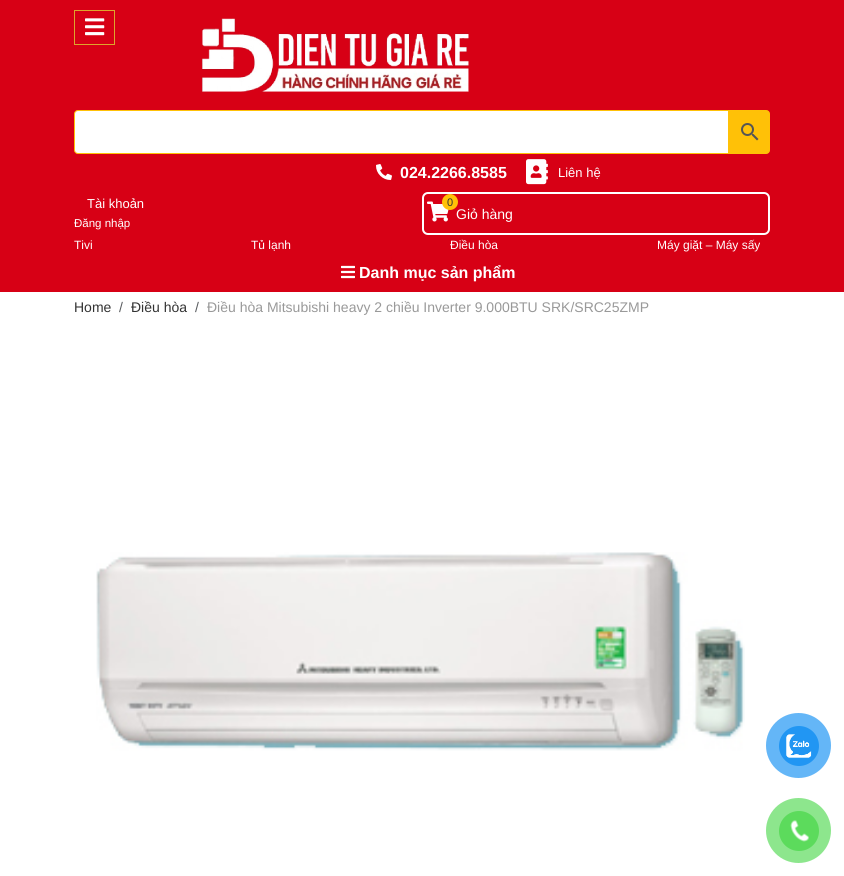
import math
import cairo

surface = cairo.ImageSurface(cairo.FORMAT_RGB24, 844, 876)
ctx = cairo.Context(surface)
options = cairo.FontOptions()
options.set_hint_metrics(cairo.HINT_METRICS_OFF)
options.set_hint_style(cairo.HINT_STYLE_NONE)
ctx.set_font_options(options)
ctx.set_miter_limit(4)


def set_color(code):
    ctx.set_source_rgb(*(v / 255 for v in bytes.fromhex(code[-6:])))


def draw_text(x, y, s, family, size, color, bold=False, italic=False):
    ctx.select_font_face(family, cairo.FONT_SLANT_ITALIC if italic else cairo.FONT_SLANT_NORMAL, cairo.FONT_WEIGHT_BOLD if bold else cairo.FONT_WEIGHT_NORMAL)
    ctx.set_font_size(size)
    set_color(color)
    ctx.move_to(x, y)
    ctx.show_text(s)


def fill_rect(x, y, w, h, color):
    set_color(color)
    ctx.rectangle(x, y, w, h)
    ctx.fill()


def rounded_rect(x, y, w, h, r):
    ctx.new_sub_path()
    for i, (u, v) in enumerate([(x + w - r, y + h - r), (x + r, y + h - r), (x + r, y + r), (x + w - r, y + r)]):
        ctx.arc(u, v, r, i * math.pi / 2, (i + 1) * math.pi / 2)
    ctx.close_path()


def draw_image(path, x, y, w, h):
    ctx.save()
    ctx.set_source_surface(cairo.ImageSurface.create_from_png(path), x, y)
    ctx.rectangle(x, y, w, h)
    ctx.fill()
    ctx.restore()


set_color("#ffffff")
ctx.paint()
fill_rect(0, 0, 844, 292, "#d70015")
ctx.rectangle(74.5, 10.5, 40, 34)
set_color("#dea52c")
ctx.set_line_width(1)
ctx.stroke()
draw_image("assets/img1.png", 85, 18, 20, 18)
draw_image("assets/img2.png", 202, 18, 267, 74)
set_color("#ffc107")
ctx.new_path()
ctx.move_to(728.5, 110.5)
ctx.line_to(766, 110.5)
ctx.curve_to(768, 110.5, 769.5, 112, 769.5, 114)
ctx.line_to(769.5, 150)
ctx.curve_to(769.5, 152, 768, 153.5, 766, 153.5)
ctx.line_to(728.5, 153.5)
ctx.close_path()
ctx.fill_preserve()
ctx.stroke()
set_color("#ffffff")
ctx.new_path()
ctx.move_to(78, 110.5)
ctx.line_to(728.5, 110.5)
ctx.line_to(728.5, 153.5)
ctx.line_to(78, 153.5)
ctx.curve_to(76, 153.5, 74.5, 152, 74.5, 150)
ctx.line_to(74.5, 114)
ctx.curve_to(74.5, 112, 76, 110.5, 78, 110.5)
ctx.close_path()
ctx.fill_preserve()
set_color("#ffc107")
ctx.stroke()
draw_image("assets/img3.png", 741, 123, 18, 18)
draw_image("assets/img4.png", 376, 164, 16, 16)
draw_text(400, 178, "024.2266.8585", "Liberation Sans", 16, "#ffffff", bold=True)
draw_image("assets/img5.png", 526, 159, 22, 26)
draw_text(558, 177, "Liên hệ", "Liberation Sans", 13, "#ffffff")
draw_text(87, 208, "Tài khoản", "Liberation Sans", 13, "#ffffff")
draw_text(74, 227, "Đăng nhập", "Liberation Sans", 11.5, "#ffffff")
rounded_rect(423, 193, 346, 41, 5)
ctx.set_line_width(2)
ctx.stroke()
draw_image("assets/img6.png", 427, 201, 22, 21)
draw_text(456, 219, "Giỏ hàng", "Liberation Sans", 14, "#ffffff")
set_color("#ffc107")
ctx.new_path()
ctx.arc(450, 202, 8, 0, 2 * math.pi)
ctx.fill()
draw_text(447, 206, "0", "Liberation Sans", 11, "#333333")
draw_text(74, 249, "Tivi", "Liberation Sans", 12, "#ffffff")
draw_text(251, 249, "Tủ lạnh", "Liberation Sans", 12, "#ffffff")
draw_text(450, 249, "Điều hòa", "Liberation Sans", 12, "#ffffff")
draw_text(657, 249, "Máy giặt – Máy sấy", "Liberation Sans", 12, "#ffffff")
draw_image("assets/img7.png", 341, 265, 14, 14)
draw_text(359, 278, "Danh mục sản phẩm", "Liberation Sans", 16, "#ffffff", bold=True)
draw_text(74, 312, "Home", "Liberation Sans", 14, "#333333")
draw_text(119, 312, "/", "Liberation Sans", 14, "#595c5f")
draw_text(131, 312, "Điều hòa", "Liberation Sans", 14, "#333333")
draw_text(195, 312, "/", "Liberation Sans", 14, "#595c5f")
draw_text(207, 312, "Điều hòa Mitsubishi heavy 2 chiều Inverter 9.000BTU SRK/SRC25ZMP", "Liberation Sans", 14, "#999999")
draw_image("assets/img8.png", 96, 552, 649, 199)
set_color("#64b6f7")
ctx.arc(798.5, 745.5, 32.5, 0, 2 * math.pi)
ctx.fill()
set_color("#2196f3")
ctx.arc(799, 746, 20, 0, 2 * math.pi)
ctx.fill()
draw_image("assets/img9.png", 786, 734, 26, 24)
set_color("#8de68d")
ctx.arc(798.5, 830.5, 32.5, 0, 2 * math.pi)
ctx.fill()
set_color("#5cdb5c")
ctx.arc(799, 831, 20, 0, 2 * math.pi)
ctx.fill()
draw_image("assets/img10.png", 790, 820, 19, 22)
surface.write_to_png("output.png")
